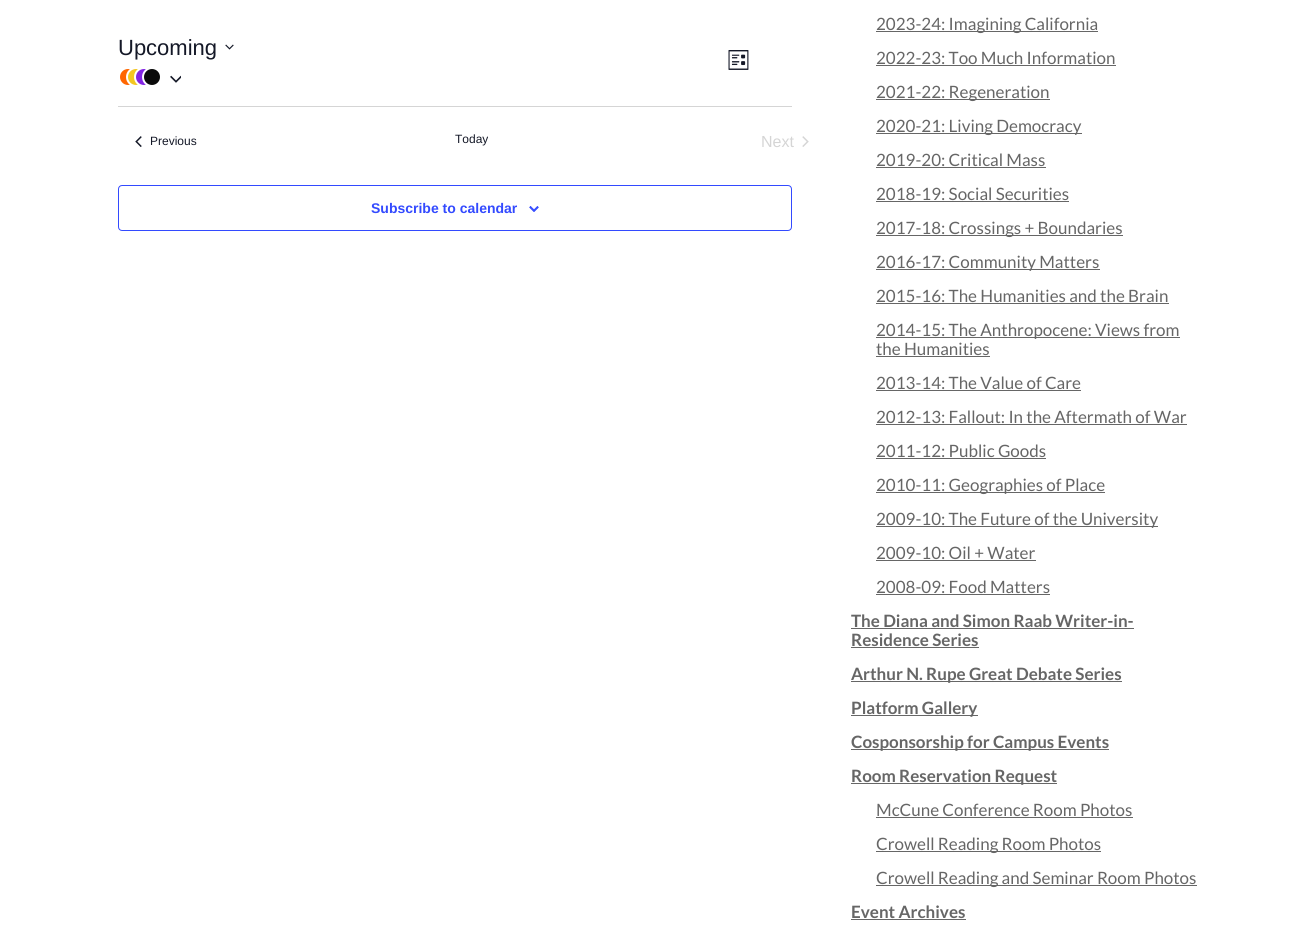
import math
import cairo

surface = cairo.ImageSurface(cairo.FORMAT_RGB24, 1296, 933)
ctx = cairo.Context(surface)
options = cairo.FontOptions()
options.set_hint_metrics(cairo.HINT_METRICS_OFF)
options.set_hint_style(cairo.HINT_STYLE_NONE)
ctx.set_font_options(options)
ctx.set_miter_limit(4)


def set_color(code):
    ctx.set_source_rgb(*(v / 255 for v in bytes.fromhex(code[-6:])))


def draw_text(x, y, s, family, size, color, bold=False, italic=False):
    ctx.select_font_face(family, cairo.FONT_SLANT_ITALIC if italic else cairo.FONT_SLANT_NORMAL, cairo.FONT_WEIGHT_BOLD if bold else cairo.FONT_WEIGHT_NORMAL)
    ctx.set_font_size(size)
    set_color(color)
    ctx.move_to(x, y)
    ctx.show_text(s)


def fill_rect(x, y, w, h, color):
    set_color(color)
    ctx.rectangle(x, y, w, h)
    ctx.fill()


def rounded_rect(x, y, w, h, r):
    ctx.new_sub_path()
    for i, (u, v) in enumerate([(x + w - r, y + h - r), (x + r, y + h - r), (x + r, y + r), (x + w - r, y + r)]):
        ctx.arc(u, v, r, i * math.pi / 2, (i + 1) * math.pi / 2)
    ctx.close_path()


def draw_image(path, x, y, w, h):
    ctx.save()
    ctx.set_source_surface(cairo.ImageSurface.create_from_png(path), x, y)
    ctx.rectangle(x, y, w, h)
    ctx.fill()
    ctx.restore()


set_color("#ffffff")
ctx.paint()
draw_text(118, 55, "Upcoming", "Liberation Sans", 22, "#141827")
draw_image("assets/img1.png", 225, 44, 9, 6)
set_color("#ff6600")
ctx.arc(128, 77, 9, 0, 2 * math.pi)
ctx.fill_preserve()
set_color("#ffffff")
ctx.stroke()
set_color("#f4c722")
ctx.arc(136, 77, 9, 0, 2 * math.pi)
ctx.fill_preserve()
set_color("#ffffff")
ctx.stroke()
set_color("#8224e3")
ctx.arc(144, 77, 9, 0, 2 * math.pi)
ctx.fill_preserve()
set_color("#ffffff")
ctx.stroke()
set_color("#0a0a0a")
ctx.arc(152, 77, 9, 0, 2 * math.pi)
ctx.fill_preserve()
set_color("#ffffff")
ctx.stroke()
draw_image("assets/img2.png", 170, 75, 11, 8)
draw_image("assets/img3.png", 728, 50, 21, 20)
fill_rect(118, 106, 674, 1, "#d5d5d5")
draw_image("assets/img4.png", 135, 136, 7, 11)
draw_text(150, 145, "Previous", "Liberation Sans", 12, "#141827")
draw_text(455, 143, "Today", "Liberation Sans", 12, "#141827")
draw_text(761, 147, "Next", "Liberation Sans", 16, "#d5d5d5")
draw_image("assets/img5.png", 802, 136, 7, 11)
rounded_rect(118.5, 185.5, 673, 45, 3.5)
set_color("#334aff")
ctx.set_line_width(1)
ctx.stroke()
draw_text(371, 213, "Subscribe to calendar", "Liberation Sans", 14, "#334aff", bold=True)
draw_image("assets/img6.png", 529, 206, 10, 6)
fill_rect(876, 31, 222, 1, "#666666")
draw_text(876, 30, "2023-24: Imagining California", "Lato", 17, "#666666")
draw_text(876, 64, "2022-23: Too Much Information", "Lato", 17, "#666666")
fill_rect(876, 65, 240, 1, "#666666")
fill_rect(876, 99, 174, 1, "#666666")
draw_text(876, 98, "2021-22: Regeneration", "Lato", 17, "#666666")
fill_rect(876, 133, 206, 1, "#666666")
draw_text(876, 132, "2020-21: Living Democracy", "Lato", 17, "#666666")
draw_text(876, 166, "2019-20: Critical Mass", "Lato", 17, "#666666")
fill_rect(876, 167, 170, 1, "#666666")
draw_text(876, 200, "2018-19: Social Securities", "Lato", 17, "#666666")
fill_rect(876, 201, 193, 1, "#666666")
fill_rect(876, 235, 247, 1, "#666666")
draw_text(876, 234, "2017-18: Crossings + Boundaries", "Lato", 17, "#666666")
fill_rect(876, 269, 224, 1, "#666666")
draw_text(876, 268, "2016-17: Community Matters", "Lato", 17, "#666666")
draw_text(876, 302, "2015-16: The Humanities and the Brain", "Lato", 17, "#666666")
fill_rect(876, 303, 293, 1, "#666666")
fill_rect(876, 337, 304, 1, "#666666")
draw_text(876, 336, "2014-15: The Anthropocene: Views from", "Lato", 17, "#666666")
draw_text(876, 355, "the Humanities", "Lato", 17, "#666666")
fill_rect(876, 356, 114, 1, "#666666")
draw_text(876, 389, "2013-14: The Value of Care", "Lato", 17, "#666666")
fill_rect(876, 390, 205, 1, "#666666")
draw_text(876, 423, "2012-13: Fallout: In the Aftermath of War", "Lato", 17, "#666666")
fill_rect(876, 424, 311, 1, "#666666")
draw_text(876, 457, "2011-12: Public Goods", "Lato", 17, "#666666")
fill_rect(876, 458, 170, 1, "#666666")
fill_rect(876, 492, 229, 1, "#666666")
draw_text(876, 491, "2010-11: Geographies of Place", "Lato", 17, "#666666")
fill_rect(876, 526, 282, 1, "#666666")
draw_text(876, 525, "2009-10: The Future of the University", "Lato", 17, "#666666")
draw_text(876, 559, "2009-10: Oil + Water", "Lato", 17, "#666666")
fill_rect(876, 560, 160, 1, "#666666")
draw_text(876, 593, "2008-09: Food Matters", "Lato", 17, "#666666")
fill_rect(876, 594, 174, 1, "#666666")
draw_text(851, 627, "The Diana and Simon Raab Writer-in-", "Lato", 17, "#666666", bold=True)
fill_rect(851, 628, 283, 1, "#666666")
draw_text(851, 646, "Residence Series", "Lato", 17, "#666666", bold=True)
fill_rect(851, 647, 128, 1, "#666666")
fill_rect(851, 681, 271, 1, "#666666")
draw_text(851, 680, "Arthur N. Rupe Great Debate Series", "Lato", 17, "#666666", bold=True)
fill_rect(851, 715, 127, 1, "#666666")
draw_text(851, 714, "Platform Gallery", "Lato", 17, "#666666", bold=True)
fill_rect(851, 749, 258, 1, "#666666")
draw_text(851, 748, "Cosponsorship for Campus Events", "Lato", 17, "#666666", bold=True)
fill_rect(851, 783, 206, 1, "#666666")
draw_text(851, 782, "Room Reservation Request", "Lato", 17, "#666666", bold=True)
draw_text(876, 816, "McCune Conference Room Photos", "Lato", 17, "#666666")
fill_rect(876, 817, 257, 1, "#666666")
fill_rect(876, 851, 225, 1, "#666666")
draw_text(876, 850, "Crowell Reading Room Photos", "Lato", 17, "#666666")
fill_rect(876, 885, 321, 1, "#666666")
draw_text(876, 884, "Crowell Reading and Seminar Room Photos", "Lato", 17, "#666666")
draw_text(851, 918, "Event Archives", "Lato", 17, "#666666", bold=True)
fill_rect(851, 919, 115, 1, "#666666")
surface.write_to_png("output.png")
